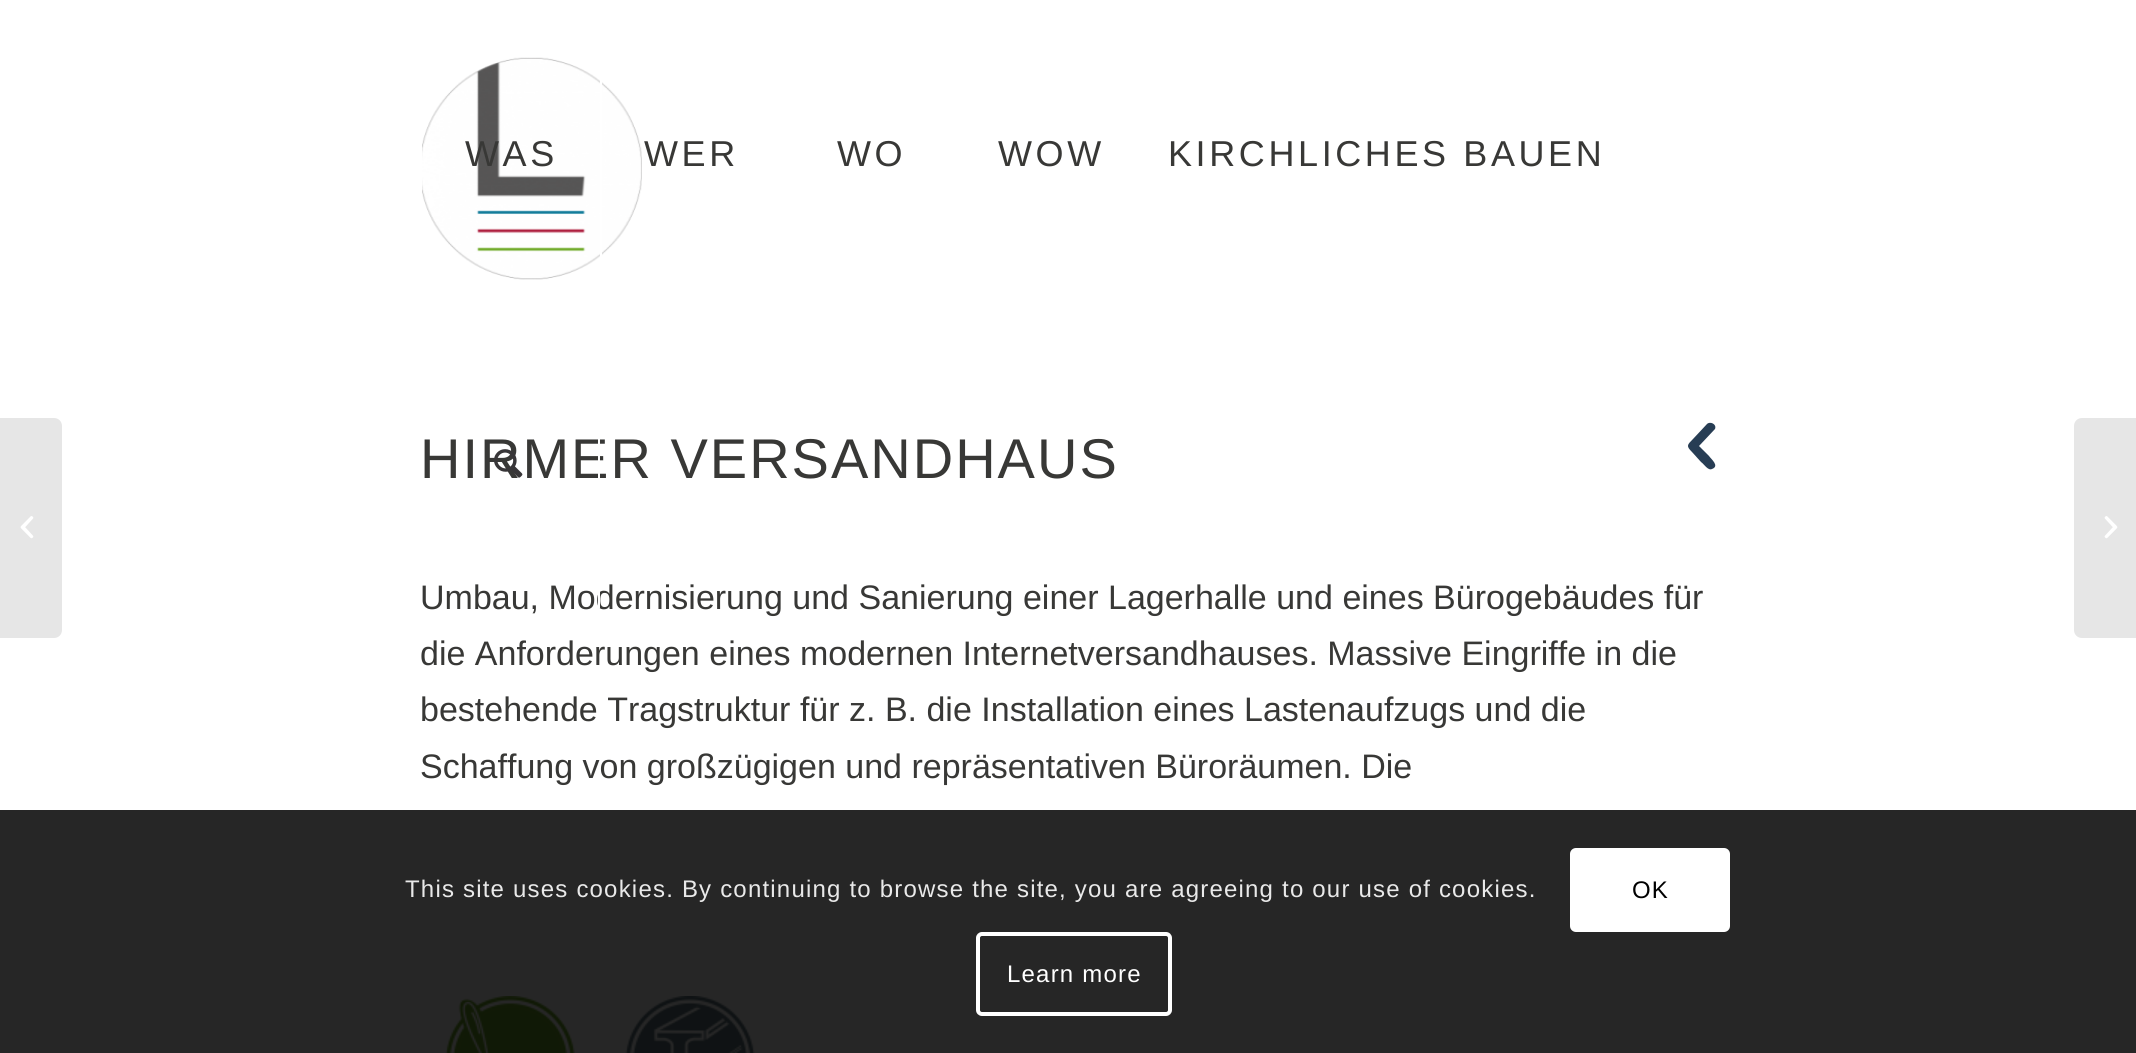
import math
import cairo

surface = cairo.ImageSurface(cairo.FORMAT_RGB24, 2136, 1053)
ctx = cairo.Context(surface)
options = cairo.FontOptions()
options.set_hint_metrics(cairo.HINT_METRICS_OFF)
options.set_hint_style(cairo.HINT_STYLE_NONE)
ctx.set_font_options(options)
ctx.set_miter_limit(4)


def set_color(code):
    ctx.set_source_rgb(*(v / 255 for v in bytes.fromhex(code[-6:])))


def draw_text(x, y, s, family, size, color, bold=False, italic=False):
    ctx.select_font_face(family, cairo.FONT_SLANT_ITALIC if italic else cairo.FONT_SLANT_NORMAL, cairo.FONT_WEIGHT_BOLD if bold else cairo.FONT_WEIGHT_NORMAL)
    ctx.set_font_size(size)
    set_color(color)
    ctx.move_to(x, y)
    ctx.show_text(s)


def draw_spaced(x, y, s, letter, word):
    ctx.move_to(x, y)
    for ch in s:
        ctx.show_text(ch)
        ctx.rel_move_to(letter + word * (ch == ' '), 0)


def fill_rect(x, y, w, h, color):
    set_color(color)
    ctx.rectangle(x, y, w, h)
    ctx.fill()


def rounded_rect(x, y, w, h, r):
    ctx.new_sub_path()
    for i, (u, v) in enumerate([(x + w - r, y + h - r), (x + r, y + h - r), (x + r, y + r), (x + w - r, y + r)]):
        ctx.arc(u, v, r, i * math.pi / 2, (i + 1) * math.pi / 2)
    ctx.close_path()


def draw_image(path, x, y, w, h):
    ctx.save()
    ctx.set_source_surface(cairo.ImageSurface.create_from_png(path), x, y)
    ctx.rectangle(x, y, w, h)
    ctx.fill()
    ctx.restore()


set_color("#ffffff")
ctx.paint()
draw_image("assets/img1.png", 422, 57, 220, 223)
ctx.select_font_face("Liberation Sans")
ctx.set_font_size(36)
set_color("#383836")
draw_spaced(465, 166, "WAS", 3.6, 0)
fill_rect(600, 80, 2, 177, "#ffffff")
set_color("#383836")
draw_spaced(644, 166, "WER", 3.6, 0)
draw_spaced(837, 166, "WO", 3.6, 0)
draw_spaced(998, 166, "WOW", 3.6, 0)
draw_spaced(1168, 166, "KIRCHLICHES BAUEN", 3.6, 0)
ctx.set_font_size(56)
draw_spaced(420, 478, "HIRMER VERSANDHAUS", 2, 0)
draw_text(420, 609, "Umbau, Modernisierung und Sanierung einer Lagerhalle und eines Bürogebäudes für", "Liberation Sans", 34, "#383836")
fill_rect(598, 439, 2, 169, "#ffffff")
draw_image("assets/img2.png", 494, 449, 29, 29)
set_color("#e6e6e6")
ctx.new_path()
ctx.move_to(0, 418)
ctx.line_to(54, 418)
ctx.curve_to(58.5, 418, 62, 421.5, 62, 426)
ctx.line_to(62, 630)
ctx.curve_to(62, 634.5, 58.5, 638, 54, 638)
ctx.line_to(0, 638)
ctx.close_path()
ctx.fill()
draw_image("assets/img3.png", 20, 516, 14, 23)
set_color("#273d54")
ctx.new_path()
ctx.move_to(1707, 424)
ctx.curve_to(1710, 421, 1717, 424, 1715, 429)
ctx.line_to(1699, 446)
ctx.line_to(1709, 456)
ctx.curve_to(1711, 459, 1720, 466, 1712, 469)
ctx.curve_to(1708, 471, 1704, 464, 1701, 462)
ctx.line_to(1692, 452)
ctx.curve_to(1686, 446, 1687, 445, 1693, 439)
ctx.close_path()
ctx.fill()
draw_text(420, 665, "die Anforderungen eines modernen Internetversandhauses. Massive Eingriffe in die", "Liberation Sans", 34, "#383836")
draw_text(420, 721, "bestehende Tragstruktur für z. B. die Installation eines Lastenaufzugs und die", "Liberation Sans", 34, "#383836")
draw_text(420, 778, "Schaffung von großzügigen und repräsentativen Büroräumen. Die", "Liberation Sans", 34, "#383836")
draw_image("assets/img4.png", 445, 996, 130, 57)
draw_image("assets/img5.png", 625, 996, 130, 57)
set_color("#e6e6e6")
ctx.new_path()
ctx.move_to(2082, 418)
ctx.line_to(2136, 418)
ctx.line_to(2136, 638)
ctx.line_to(2082, 638)
ctx.curve_to(2077.5, 638, 2074, 634.5, 2074, 630)
ctx.line_to(2074, 426)
ctx.curve_to(2074, 421.5, 2077.5, 418, 2082, 418)
ctx.close_path()
ctx.fill()
draw_image("assets/img6.png", 2104, 516, 14, 23)
ctx.set_source_rgba(0, 0, 0, 0.85)
ctx.rectangle(0, 810, 2136, 243)
ctx.fill()
ctx.set_font_size(24)
set_color("#e9e9e9")
draw_spaced(405, 897, "This site uses cookies. By continuing to browse the site, you are agreeing to our use of cookies.", 1.2, 0)
set_color("#ffffff")
rounded_rect(1570, 848, 160, 84, 6)
ctx.fill()
set_color("#000000")
draw_spaced(1632, 898, "OK", 1.2, 0)
rounded_rect(978, 934, 192, 80, 4)
set_color("#ffffff")
ctx.set_line_width(4)
ctx.stroke()
draw_spaced(1007, 982, "Learn more", 1.2, 0)
surface.write_to_png("output.png")
